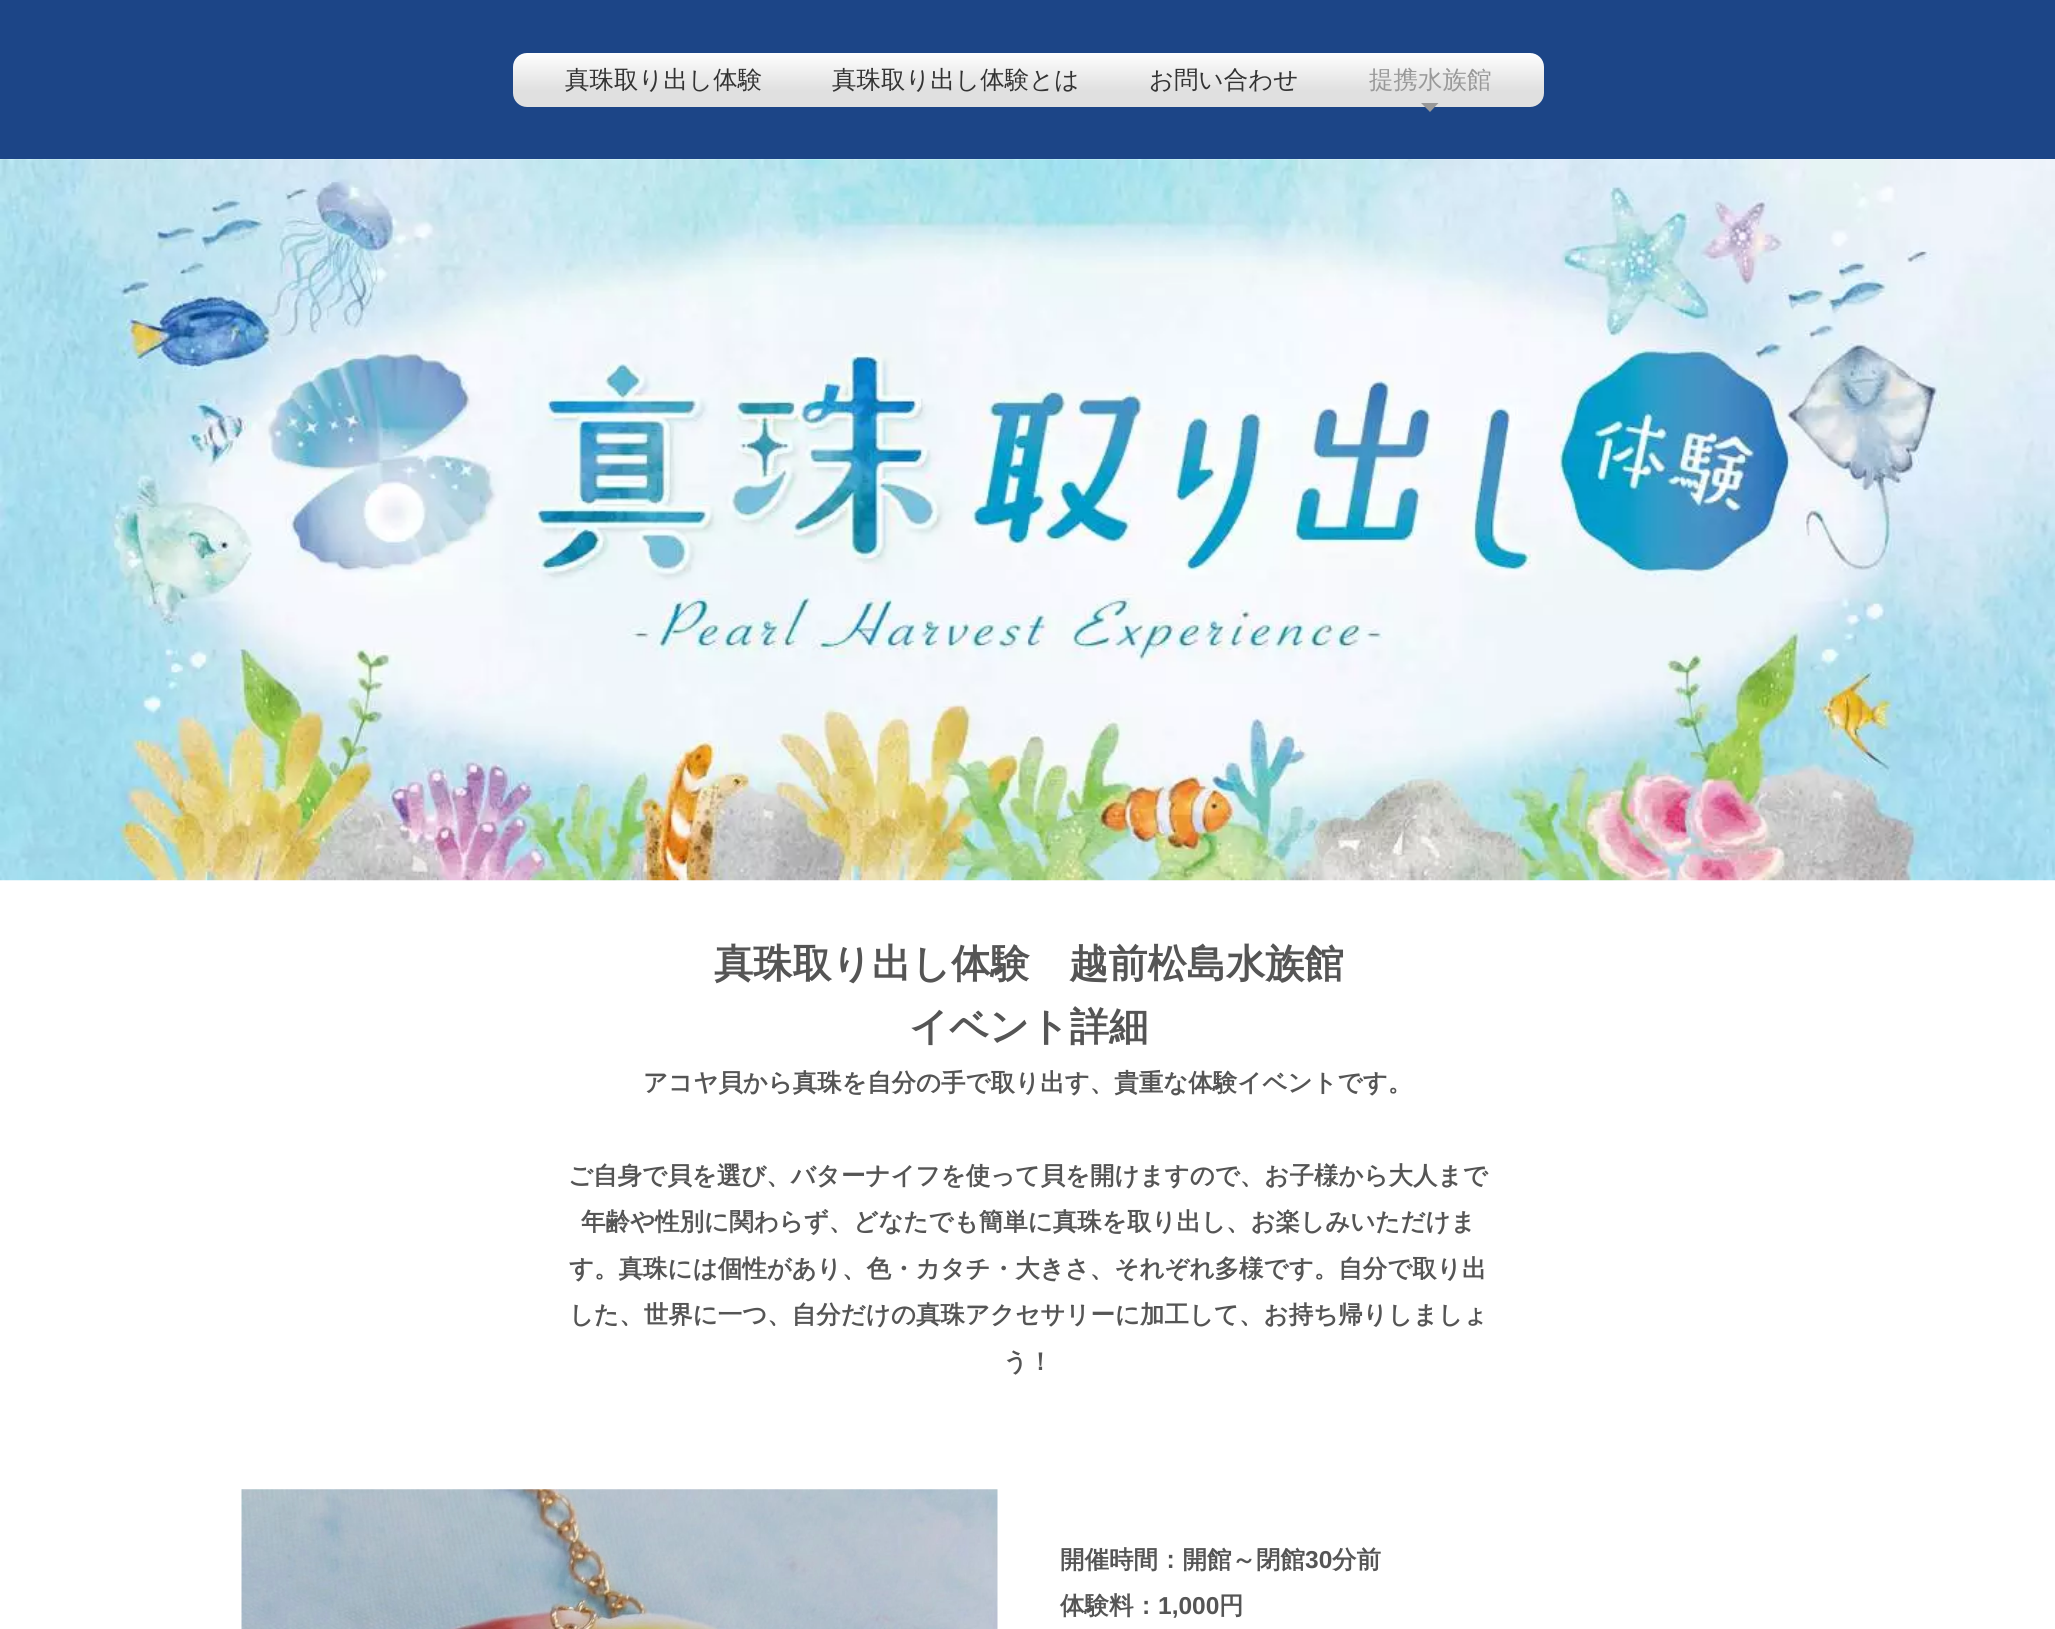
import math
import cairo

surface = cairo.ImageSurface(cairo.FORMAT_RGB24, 2055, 1629)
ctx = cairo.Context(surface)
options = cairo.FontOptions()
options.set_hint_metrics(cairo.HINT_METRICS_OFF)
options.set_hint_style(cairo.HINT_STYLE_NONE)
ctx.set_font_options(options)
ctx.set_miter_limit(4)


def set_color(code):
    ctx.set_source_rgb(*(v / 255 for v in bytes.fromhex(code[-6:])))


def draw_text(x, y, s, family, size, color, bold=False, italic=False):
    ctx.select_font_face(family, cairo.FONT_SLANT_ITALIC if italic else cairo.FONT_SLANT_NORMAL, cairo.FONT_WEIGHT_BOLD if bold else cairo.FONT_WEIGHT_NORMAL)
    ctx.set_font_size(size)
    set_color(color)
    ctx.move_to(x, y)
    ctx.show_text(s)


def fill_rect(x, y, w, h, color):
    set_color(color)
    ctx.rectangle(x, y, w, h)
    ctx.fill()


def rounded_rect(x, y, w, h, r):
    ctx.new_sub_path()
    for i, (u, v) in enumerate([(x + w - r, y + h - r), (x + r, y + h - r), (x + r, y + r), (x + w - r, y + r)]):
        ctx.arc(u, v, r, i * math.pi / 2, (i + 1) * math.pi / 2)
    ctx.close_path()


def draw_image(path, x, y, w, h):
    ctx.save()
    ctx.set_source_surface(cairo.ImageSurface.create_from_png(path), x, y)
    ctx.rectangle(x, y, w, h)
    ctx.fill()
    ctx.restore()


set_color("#ffffff")
ctx.paint()
fill_rect(0, 0, 2055, 159, "#1c4587")
gradient = cairo.LinearGradient(1028, 52, 1028, 107)
gradient.add_color_stop_rgba(0, 1, 1, 1, 1)
gradient.add_color_stop_rgba(0.7, 0.878, 0.878, 0.878, 1)
ctx.set_source(gradient)
rounded_rect(513, 53, 1031, 54, 14)
ctx.fill()
draw_text(565, 88, "真珠取り出し体験", "WenQuanYi Zen Hei Medium", 24.5, "#333333")
draw_text(832, 88, "真珠取り出し体験とは", "WenQuanYi Zen Hei Medium", 24.5, "#333333")
draw_text(1149, 88, "お問い合わせ", "WenQuanYi Zen Hei Medium", 24.5, "#333333")
draw_text(1369, 88, "提携水族館", "WenQuanYi Zen Hei Medium", 24.5, "#999999")
ctx.new_path()
ctx.move_to(1421, 103)
ctx.line_to(1438.5, 103)
ctx.line_to(1430, 112)
ctx.close_path()
ctx.fill()
draw_image("assets/img1.png", 0, 159, 2055, 722)
draw_text(714, 977, "真珠取り出し体験　越前松島水族館", "WenQuanYi Zen Hei", 39.25, "#555555", bold=True)
draw_text(909, 1040, "イベント詳細", "WenQuanYi Zen Hei", 39.25, "#555555", bold=True)
draw_text(643, 1091, "アコヤ貝から真珠を自分の手で取り出す、貴重な体験イベントです。", "WenQuanYi Zen Hei", 24.5, "#555555", bold=True)
draw_text(568, 1184, "ご自身で貝を選び、バターナイフを使って貝を開けますので、お子様から大人まで", "WenQuanYi Zen Hei", 24.5, "#555555", bold=True)
draw_text(581, 1230, "年齢や性別に関わらず、どなたでも簡単に真珠を取り出し、お楽しみいただけま", "WenQuanYi Zen Hei", 24.5, "#555555", bold=True)
draw_text(569, 1277, "す。真珠には個性があり、色・カタチ・大きさ、それぞれ多様です。自分で取り出", "WenQuanYi Zen Hei", 24.5, "#555555", bold=True)
draw_text(569, 1323, "した、世界に一つ、自分だけの真珠アクセサリーに加工して、お持ち帰りしましょ", "WenQuanYi Zen Hei", 24.5, "#555555", bold=True)
draw_text(1003, 1370, "う！", "WenQuanYi Zen Hei", 24.5, "#555555", bold=True)
draw_image("assets/img2.png", 241, 1489, 757, 140)
draw_text(1060, 1568, "開催時間：開館～閉館", "WenQuanYi Zen Hei", 24.5, "#555555", bold=True)
draw_text(1305, 1568, "30", "Liberation Sans", 24.5, "#555555", bold=True)
draw_text(1332, 1568, "分前", "WenQuanYi Zen Hei", 24.5, "#555555", bold=True)
draw_text(1060, 1614, "体験料：", "WenQuanYi Zen Hei", 24.5, "#555555", bold=True)
draw_text(1158, 1614, "1,000", "Liberation Sans", 24.5, "#555555", bold=True)
draw_text(1219, 1614, "円", "WenQuanYi Zen Hei", 24.5, "#555555", bold=True)
surface.write_to_png("output.png")
